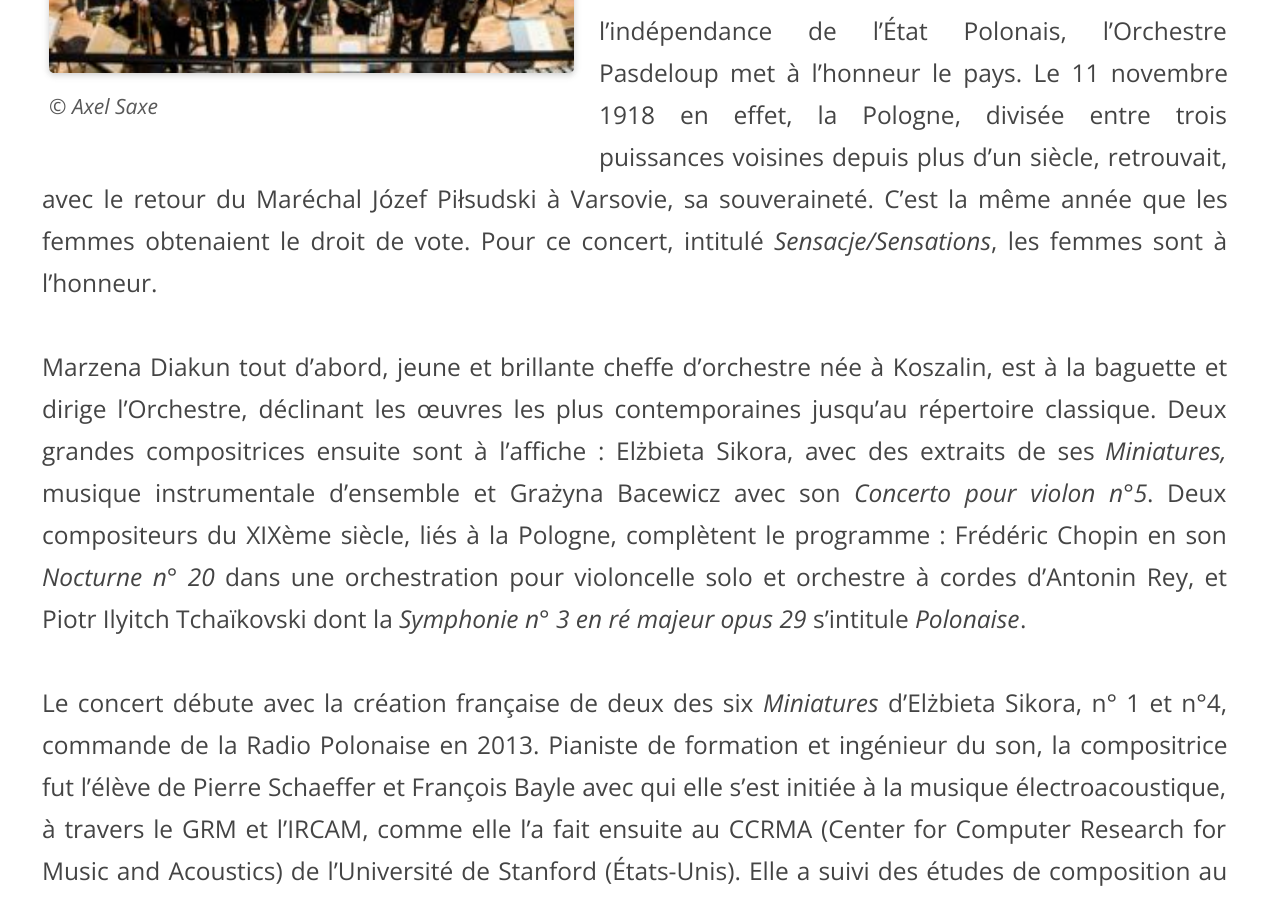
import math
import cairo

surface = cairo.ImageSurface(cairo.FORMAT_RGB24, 1268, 906)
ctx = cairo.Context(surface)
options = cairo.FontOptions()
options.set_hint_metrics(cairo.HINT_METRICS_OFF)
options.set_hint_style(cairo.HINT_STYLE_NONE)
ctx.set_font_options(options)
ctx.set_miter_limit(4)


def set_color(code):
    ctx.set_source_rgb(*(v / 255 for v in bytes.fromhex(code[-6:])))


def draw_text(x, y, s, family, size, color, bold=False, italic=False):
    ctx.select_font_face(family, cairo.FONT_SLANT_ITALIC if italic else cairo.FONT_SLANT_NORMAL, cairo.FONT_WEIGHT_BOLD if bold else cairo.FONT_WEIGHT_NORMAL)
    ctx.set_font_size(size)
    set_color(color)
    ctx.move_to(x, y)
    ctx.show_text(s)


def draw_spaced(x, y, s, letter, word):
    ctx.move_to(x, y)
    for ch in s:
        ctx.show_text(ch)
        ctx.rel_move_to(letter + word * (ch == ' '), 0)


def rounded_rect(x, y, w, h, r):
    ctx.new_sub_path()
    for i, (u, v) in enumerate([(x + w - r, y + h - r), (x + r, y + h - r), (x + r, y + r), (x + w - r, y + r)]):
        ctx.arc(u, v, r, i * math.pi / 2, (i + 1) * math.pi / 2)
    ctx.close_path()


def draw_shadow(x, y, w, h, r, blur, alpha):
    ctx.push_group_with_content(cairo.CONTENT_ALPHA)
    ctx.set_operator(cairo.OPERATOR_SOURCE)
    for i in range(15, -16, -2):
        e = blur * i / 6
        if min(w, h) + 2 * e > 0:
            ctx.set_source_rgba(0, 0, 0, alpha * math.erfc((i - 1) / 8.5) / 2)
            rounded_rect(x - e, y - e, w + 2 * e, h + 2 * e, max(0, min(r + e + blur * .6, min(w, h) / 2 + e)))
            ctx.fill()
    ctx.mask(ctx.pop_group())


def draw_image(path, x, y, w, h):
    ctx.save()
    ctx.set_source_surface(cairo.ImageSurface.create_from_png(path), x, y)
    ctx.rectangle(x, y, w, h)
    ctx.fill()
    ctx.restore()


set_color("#ffffff")
ctx.paint()
ctx.select_font_face("Open Sans")
ctx.set_font_size(24.5)
set_color("#444444")
draw_spaced(599, 40, "l’indépendance de l’État Polonais, l’Orchestre", 0, 29.5)
draw_spaced(599, 82, "Pasdeloup met à l’honneur le pays. Le 11 novembre", 0, 5)
draw_spaced(599, 124, "1918 en effet, la Pologne, divisée entre trois", 0, 18.5)
draw_spaced(599, 166, "puissances voisines depuis plus d’un siècle, retrouvait,", 0, 1.75)
draw_spaced(42, 208, "avec le retour du Maréchal Józef Piłsudski à Varsovie, sa souveraineté. C’est la même année que les", 0, 3.75)
draw_spaced(42, 250, "femmes obtenaient le droit de vote. Pour ce concert, intitulé", 0, 4)
draw_text(774, 250, "Sensacje/Sensations", "Open Sans", 24.5, "#444444", italic=True)
ctx.select_font_face("Open Sans")
draw_spaced(991, 250, ", les femmes sont à", 0, 4)
draw_text(42, 292, "l’honneur.", "Open Sans", 24.5, "#444444")
set_color("#000000")
draw_shadow(49, -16, 525, 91, 5, 3.5, 0.2)
draw_image("assets/img1.png", 49, 0, 525, 73)
draw_text(49, 114, "© Axel Saxe", "Open Sans", 21, "#585858", italic=True)
ctx.select_font_face("Open Sans")
ctx.set_font_size(24.5)
set_color("#444444")
draw_spaced(42, 376, "Marzena Diakun tout d’abord, jeune et brillante cheffe d’orchestre née à Koszalin, est à la baguette et", 0, 2.1)
draw_spaced(42, 418, "dirige l’Orchestre, déclinant les œuvres les plus contemporaines jusqu’au répertoire classique. Deux", 0, 4.4)
draw_spaced(42, 460, "grandes compositrices ensuite sont à l’affiche : Elżbieta Sikora, avec des extraits de ses", 0, 5.25)
draw_text(1105, 460, "Miniatures,", "Open Sans", 24.5, "#444444", italic=True)
ctx.select_font_face("Open Sans")
draw_spaced(42, 502, "musique instrumentale d’ensemble et Grażyna Bacewicz avec son", 0, 7.25)
ctx.select_font_face("Open Sans", cairo.FONT_SLANT_ITALIC)
draw_spaced(854, 502, "Concerto pour violon n°5", 0, 7.25)
ctx.select_font_face("Open Sans")
draw_spaced(1147, 502, ". Deux", 0, 7.25)
draw_spaced(42, 544, "compositeurs du XIXème siècle, liés à la Pologne, complètent le programme : Frédéric Chopin en son", 0, 2.75)
ctx.select_font_face("Open Sans", cairo.FONT_SLANT_ITALIC)
draw_spaced(42, 586, "Nocturne n° 20", 0, 4)
ctx.select_font_face("Open Sans")
draw_spaced(225, 586, "dans une orchestration pour violoncelle solo et orchestre à cordes d’Antonin Rey, et", 0, 4)
draw_text(42, 628, "Piotr Ilyitch Tchaïkovski dont la", "Open Sans", 24.5, "#444444")
draw_text(399, 628, "Symphonie n° 3 en ré majeur opus 29", "Open Sans", 24.5, "#444444", italic=True)
draw_text(813, 628, "s’intitule", "Open Sans", 24.5, "#444444")
draw_text(915, 628, "Polonaise", "Open Sans", 24.5, "#444444", italic=True)
draw_text(1020, 628, ".", "Open Sans", 24.5, "#444444")
draw_spaced(42, 712, "Le concert débute avec la création française de deux des six", 0, 2.9)
draw_text(763, 712, "Miniatures", "Open Sans", 24.5, "#444444", italic=True)
ctx.select_font_face("Open Sans")
draw_spaced(888, 712, "d’Elżbieta Sikora, n° 1 et n°4,", 0, 2.9)
draw_spaced(42, 754, "commande de la Radio Polonaise en 2013. Pianiste de formation et ingénieur du son, la compositrice", 0, 2.5)
draw_spaced(42, 796, "fut l’élève de Pierre Schaeffer et François Bayle avec qui elle s’est initiée à la musique électroacoustique,", 0, 0.3)
draw_spaced(42, 838, "à travers le GRM et l’IRCAM, comme elle l’a fait ensuite au CCRMA (Center for Computer Research for", 0, 2.4)
draw_spaced(42, 880, "Music and Acoustics) de l’Université de Stanford (États-Unis). Elle a suivi des études de composition au", 0, 1.7)
surface.write_to_png("output.png")
